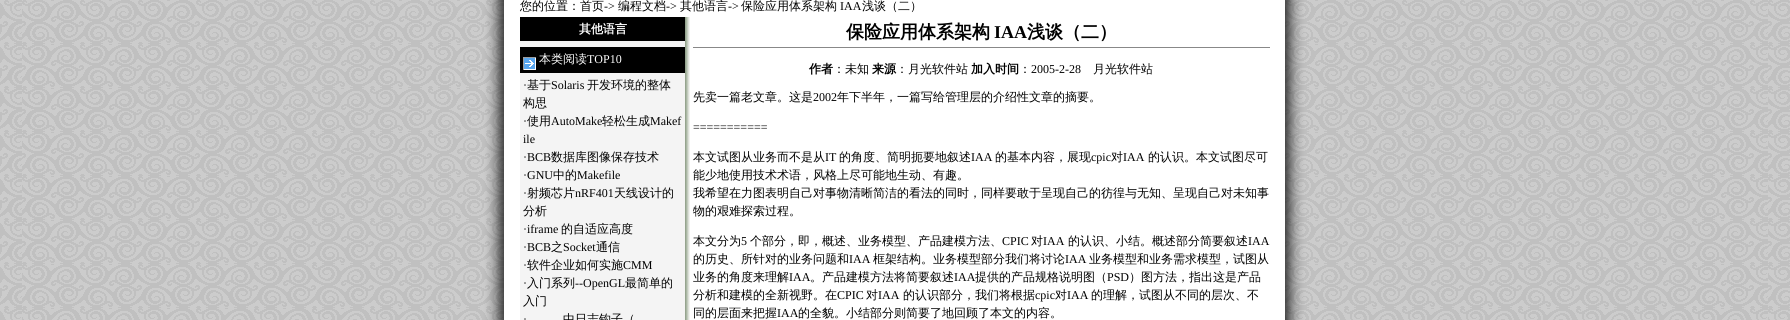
import math
import cairo

surface = cairo.ImageSurface(cairo.FORMAT_RGB24, 1790, 320)
ctx = cairo.Context(surface)
options = cairo.FontOptions()
options.set_hint_metrics(cairo.HINT_METRICS_OFF)
options.set_hint_style(cairo.HINT_STYLE_NONE)
ctx.set_font_options(options)
ctx.set_miter_limit(4)


def set_color(code):
    ctx.set_source_rgb(*(v / 255 for v in bytes.fromhex(code[-6:])))


def draw_text(x, y, s, family, size, color, bold=False, italic=False):
    ctx.select_font_face(family, cairo.FONT_SLANT_ITALIC if italic else cairo.FONT_SLANT_NORMAL, cairo.FONT_WEIGHT_BOLD if bold else cairo.FONT_WEIGHT_NORMAL)
    ctx.set_font_size(size)
    set_color(color)
    ctx.move_to(x, y)
    ctx.show_text(s)


def fill_rect(x, y, w, h, color):
    set_color(color)
    ctx.rectangle(x, y, w, h)
    ctx.fill()


def draw_image(path, x, y, w, h):
    ctx.save()
    ctx.set_source_surface(cairo.ImageSurface.create_from_png(path), x, y)
    ctx.rectangle(x, y, w, h)
    ctx.fill()
    ctx.restore()


set_color("#ffffff")
ctx.paint()
draw_image("assets/img1.png", 0, 0, 1790, 320)
draw_text(520, 10, "您的位置：首页", "WenQuanYi Zen Hei Medium", 12, "#000000")
draw_text(604, 10, "->", "Liberation Serif", 12, "#000000")
draw_text(618, 10, "编程文档", "WenQuanYi Zen Hei Medium", 12, "#000000")
draw_text(666, 10, "->", "Liberation Serif", 12, "#000000")
draw_text(680, 10, "其他语言", "WenQuanYi Zen Hei Medium", 12, "#000000")
draw_text(728, 10, "->", "Liberation Serif", 12, "#000000")
draw_text(741, 10, "保险应用体系架构", "WenQuanYi Zen Hei Medium", 12, "#000000")
draw_text(840, 10, "IAA", "Liberation Serif", 12, "#000000")
draw_text(862, 10, "浅谈（二）", "WenQuanYi Zen Hei Medium", 12, "#000000")
fill_rect(520, 41, 165, 279, "#f4f4f4")
fill_rect(520, 17, 165, 24, "#000000")
draw_text(579, 33, "其他语言", "WenQuanYi Zen Hei", 12, "#ffffff", bold=True)
fill_rect(520, 47, 165, 26, "#000000")
draw_image("assets/img2.png", 523, 57, 13, 13)
draw_text(539, 63, "本类阅读", "WenQuanYi Zen Hei Medium", 12, "#ffffff")
draw_text(587, 63, "TOP10", "Liberation Serif", 12, "#ffffff")
draw_text(523, 89, "·", "Liberation Serif", 12, "#000000")
draw_text(527, 89, "基于", "WenQuanYi Zen Hei Medium", 12, "#000000")
draw_text(551, 89, "Solaris", "Liberation Serif", 12, "#000000")
draw_text(587, 89, "开发环境的整体", "WenQuanYi Zen Hei Medium", 12, "#000000")
draw_text(523, 107, "构思", "WenQuanYi Zen Hei Medium", 12, "#000000")
draw_text(523, 125, "·", "Liberation Serif", 12, "#000000")
draw_text(527, 125, "使用", "WenQuanYi Zen Hei Medium", 12, "#000000")
draw_text(551, 125, "AutoMake", "Liberation Serif", 12, "#000000")
draw_text(602, 125, "轻松生成", "WenQuanYi Zen Hei Medium", 12, "#000000")
draw_text(650, 125, "Makef", "Liberation Serif", 12, "#000000")
draw_text(523, 143, "ile", "Liberation Serif", 12, "#000000")
draw_text(523, 161, "·BCB", "Liberation Serif", 12, "#000000")
draw_text(551, 161, "数据库图像保存技术", "WenQuanYi Zen Hei Medium", 12, "#000000")
draw_text(523, 179, "·GNU", "Liberation Serif", 12, "#000000")
draw_text(553, 179, "中的", "WenQuanYi Zen Hei Medium", 12, "#000000")
draw_text(577, 179, "Makefile", "Liberation Serif", 12, "#000000")
draw_text(523, 197, "·", "Liberation Serif", 12, "#000000")
draw_text(527, 197, "射频芯片", "WenQuanYi Zen Hei Medium", 12, "#000000")
draw_text(575, 197, "nRF401", "Liberation Serif", 12, "#000000")
draw_text(614, 197, "天线设计的", "WenQuanYi Zen Hei Medium", 12, "#000000")
draw_text(523, 215, "分析", "WenQuanYi Zen Hei Medium", 12, "#000000")
draw_text(523, 233, "·iframe", "Liberation Serif", 12, "#000000")
draw_text(561, 233, "的自适应高度", "WenQuanYi Zen Hei Medium", 12, "#000000")
draw_text(523, 251, "·BCB", "Liberation Serif", 12, "#000000")
draw_text(551, 251, "之", "WenQuanYi Zen Hei Medium", 12, "#000000")
draw_text(563, 251, "Socket", "Liberation Serif", 12, "#000000")
draw_text(596, 251, "通信", "WenQuanYi Zen Hei Medium", 12, "#000000")
draw_text(523, 269, "·", "Liberation Serif", 12, "#000000")
draw_text(527, 269, "软件企业如何实施", "WenQuanYi Zen Hei Medium", 12, "#000000")
draw_text(623, 269, "CMM", "Liberation Serif", 12, "#000000")
draw_text(523, 287, "·", "Liberation Serif", 12, "#000000")
draw_text(527, 287, "入门系列", "WenQuanYi Zen Hei Medium", 12, "#000000")
draw_text(575, 287, "--OpenGL", "Liberation Serif", 12, "#000000")
draw_text(625, 287, "最简单的", "WenQuanYi Zen Hei Medium", 12, "#000000")
draw_text(523, 305, "入门", "WenQuanYi Zen Hei Medium", 12, "#000000")
draw_text(523, 323, "·", "Liberation Serif", 12, "#000000")
draw_text(563, 323, "中日志钩子（", "WenQuanYi Zen Hei Medium", 12, "#000000")
draw_image("assets/img3.png", 685, 17, 5, 303)
draw_text(846, 38, "保险应用体系架构", "WenQuanYi Zen Hei", 18, "#000000", bold=True)
draw_text(994, 38, "IAA", "Liberation Serif", 18, "#000000", bold=True)
draw_text(1027, 38, "浅谈（二）", "WenQuanYi Zen Hei", 18, "#000000", bold=True)
fill_rect(693, 47, 577, 1, "#888888")
draw_text(809, 73, "作者", "WenQuanYi Zen Hei", 12, "#000000", bold=True)
draw_text(833, 73, "：未知", "WenQuanYi Zen Hei Medium", 12, "#000000")
draw_text(872, 73, "来源", "WenQuanYi Zen Hei", 12, "#000000", bold=True)
draw_text(896, 73, "：月光软件站", "WenQuanYi Zen Hei Medium", 12, "#000000")
draw_text(971, 73, "加入时间", "WenQuanYi Zen Hei", 12, "#000000", bold=True)
draw_text(1019, 73, "：", "WenQuanYi Zen Hei Medium", 12, "#000000")
draw_text(1031, 73, "2005-2-28", "Liberation Serif", 12, "#000000")
draw_text(1093, 73, "月光软件站", "WenQuanYi Zen Hei Medium", 12, "#000000")
draw_text(693, 101, "先卖一篇老文章。这是", "WenQuanYi Zen Hei Medium", 12, "#000000")
draw_text(813, 101, "2002", "Liberation Serif", 12, "#000000")
draw_text(837, 101, "年下半年，一篇写给管理层的介绍性文章的摘要。", "WenQuanYi Zen Hei Medium", 12, "#000000")
draw_text(693, 131, "===========", "Liberation Serif", 12, "#000000")
draw_text(693, 161, "本文试图从业务而不是从", "WenQuanYi Zen Hei Medium", 12, "#000000")
draw_text(825, 161, "IT", "Liberation Serif", 12, "#000000")
draw_text(839, 161, "的角度、简明扼要地叙述", "WenQuanYi Zen Hei Medium", 12, "#000000")
draw_text(971, 161, "IAA", "Liberation Serif", 12, "#000000")
draw_text(995, 161, "的基本内容，展现", "WenQuanYi Zen Hei Medium", 12, "#000000")
draw_text(1091, 161, "cpic", "Liberation Serif", 12, "#000000")
draw_text(1111, 161, "对", "WenQuanYi Zen Hei Medium", 12, "#000000")
draw_text(1123, 161, "IAA", "Liberation Serif", 12, "#000000")
draw_text(1148, 161, "的认识。本文试图尽可", "WenQuanYi Zen Hei Medium", 12, "#000000")
draw_text(693, 179, "能少地使用技术术语，风格上尽可能地生动、有趣。", "WenQuanYi Zen Hei Medium", 12, "#000000")
draw_text(693, 197, "我希望在力图表明自己对事物清晰简洁的看法的同时，同样要敢于呈现自己的彷徨与无知、呈现自己对未知事", "WenQuanYi Zen Hei Medium", 12, "#000000")
draw_text(693, 215, "物的艰难探索过程。", "WenQuanYi Zen Hei Medium", 12, "#000000")
draw_text(693, 245, "本文分为", "WenQuanYi Zen Hei Medium", 12, "#000000")
draw_text(741, 245, "5", "Liberation Serif", 12, "#000000")
draw_text(750, 245, "个部分，即，概述、业务模型、产品建模方法、", "WenQuanYi Zen Hei Medium", 12, "#000000")
draw_text(1002, 245, "CPIC", "Liberation Serif", 12, "#000000")
draw_text(1031, 245, "对", "WenQuanYi Zen Hei Medium", 12, "#000000")
draw_text(1043, 245, "IAA", "Liberation Serif", 12, "#000000")
draw_text(1068, 245, "的认识、小结。概述部分简要叙述", "WenQuanYi Zen Hei Medium", 12, "#000000")
draw_text(1248, 245, "IAA", "Liberation Serif", 12, "#000000")
draw_text(693, 263, "的历史、所针对的业务问题和", "WenQuanYi Zen Hei Medium", 12, "#000000")
draw_text(849, 263, "IAA", "Liberation Serif", 12, "#000000")
draw_text(873, 263, "框架结构。业务模型部分我们将讨论", "WenQuanYi Zen Hei Medium", 12, "#000000")
draw_text(1065, 263, "IAA", "Liberation Serif", 12, "#000000")
draw_text(1089, 263, "业务模型和业务需求模型，试图从", "WenQuanYi Zen Hei Medium", 12, "#000000")
draw_text(693, 281, "业务的角度来理解", "WenQuanYi Zen Hei Medium", 12, "#000000")
draw_text(789, 281, "IAA", "Liberation Serif", 12, "#000000")
draw_text(810, 281, "。产品建模方法将简要叙述", "WenQuanYi Zen Hei Medium", 12, "#000000")
draw_text(954, 281, "IAA", "Liberation Serif", 12, "#000000")
draw_text(975, 281, "提供的产品规格说明图（", "WenQuanYi Zen Hei Medium", 12, "#000000")
draw_text(1107, 281, "PSD", "Liberation Serif", 12, "#000000")
draw_text(1129, 281, "）图方法，指出这是产品", "WenQuanYi Zen Hei Medium", 12, "#000000")
draw_text(693, 299, "分析和建模的全新视野。在", "WenQuanYi Zen Hei Medium", 12, "#000000")
draw_text(837, 299, "CPIC", "Liberation Serif", 12, "#000000")
draw_text(866, 299, "对", "WenQuanYi Zen Hei Medium", 12, "#000000")
draw_text(878, 299, "IAA", "Liberation Serif", 12, "#000000")
draw_text(903, 299, "的认识部分，我们将根据", "WenQuanYi Zen Hei Medium", 12, "#000000")
draw_text(1035, 299, "cpic", "Liberation Serif", 12, "#000000")
draw_text(1055, 299, "对", "WenQuanYi Zen Hei Medium", 12, "#000000")
draw_text(1067, 299, "IAA", "Liberation Serif", 12, "#000000")
draw_text(1091, 299, "的理解，试图从不同的层次、不", "WenQuanYi Zen Hei Medium", 12, "#000000")
draw_text(693, 317, "同的层面来把握", "WenQuanYi Zen Hei Medium", 12, "#000000")
draw_text(777, 317, "IAA", "Liberation Serif", 12, "#000000")
draw_text(798, 317, "的全貌。小结部分则简要了地回顾了本文的内容。", "WenQuanYi Zen Hei Medium", 12, "#000000")
surface.write_to_png("output.png")
